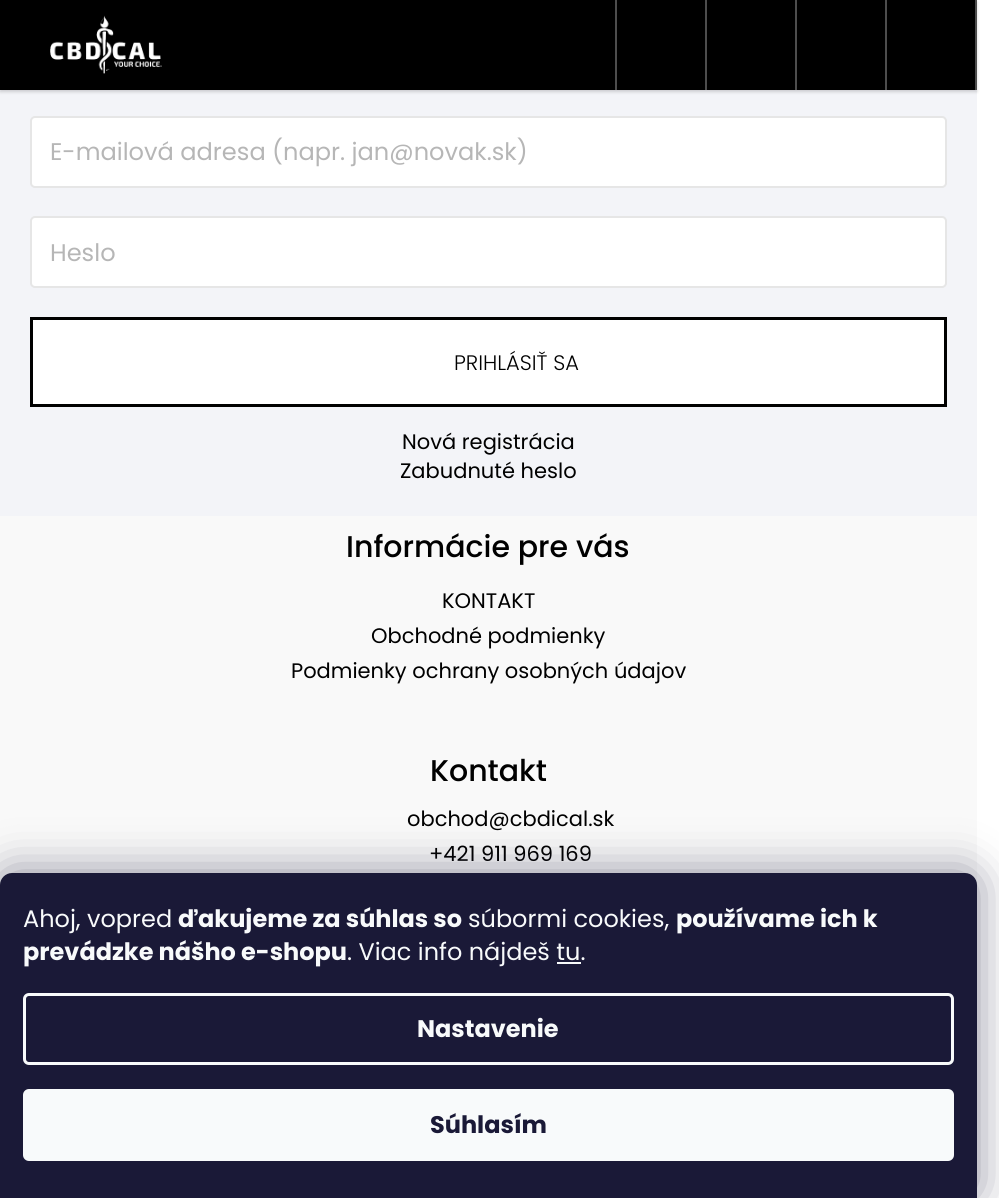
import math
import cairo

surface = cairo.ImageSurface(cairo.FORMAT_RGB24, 999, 1198)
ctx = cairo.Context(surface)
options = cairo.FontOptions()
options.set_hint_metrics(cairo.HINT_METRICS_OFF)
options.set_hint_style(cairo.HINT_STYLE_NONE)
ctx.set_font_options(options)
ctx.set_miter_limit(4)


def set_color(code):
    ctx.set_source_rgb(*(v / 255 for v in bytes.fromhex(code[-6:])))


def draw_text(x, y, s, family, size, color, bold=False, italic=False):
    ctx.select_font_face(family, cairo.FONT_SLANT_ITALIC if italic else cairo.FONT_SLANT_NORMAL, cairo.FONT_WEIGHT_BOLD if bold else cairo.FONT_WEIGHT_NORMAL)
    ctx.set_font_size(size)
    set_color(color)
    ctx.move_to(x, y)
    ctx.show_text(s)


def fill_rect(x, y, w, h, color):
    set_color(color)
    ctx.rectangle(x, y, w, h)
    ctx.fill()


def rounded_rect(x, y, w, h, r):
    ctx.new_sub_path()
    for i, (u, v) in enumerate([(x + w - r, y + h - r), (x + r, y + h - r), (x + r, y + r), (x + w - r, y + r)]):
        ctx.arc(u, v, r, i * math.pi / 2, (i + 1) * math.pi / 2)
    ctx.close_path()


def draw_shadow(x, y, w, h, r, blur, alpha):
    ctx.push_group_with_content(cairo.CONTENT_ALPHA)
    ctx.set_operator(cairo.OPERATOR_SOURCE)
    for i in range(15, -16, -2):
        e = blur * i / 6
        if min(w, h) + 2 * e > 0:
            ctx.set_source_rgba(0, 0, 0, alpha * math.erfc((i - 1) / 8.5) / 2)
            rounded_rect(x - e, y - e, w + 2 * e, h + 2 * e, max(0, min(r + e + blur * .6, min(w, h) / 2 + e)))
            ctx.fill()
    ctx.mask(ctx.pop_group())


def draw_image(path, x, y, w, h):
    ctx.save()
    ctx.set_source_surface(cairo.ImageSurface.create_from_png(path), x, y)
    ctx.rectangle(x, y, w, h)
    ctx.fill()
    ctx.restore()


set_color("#ffffff")
ctx.paint()
fill_rect(0, 90, 977, 426, "#f3f4f8")
set_color("#000000")
draw_shadow(0, 2, 977, 90, 0, 1.5, 0.16)
fill_rect(0, 0, 975, 90, "#000000")
draw_image("assets/img1.png", 50, 15, 112, 59)
fill_rect(975, 0, 2, 90, "#4d4d4d")
fill_rect(615, 0, 2, 90, "#4d4d4d")
fill_rect(705, 0, 2, 90, "#4d4d4d")
fill_rect(795, 0, 2, 90, "#4d4d4d")
fill_rect(885, 0, 2, 90, "#4d4d4d")
fill_rect(0, 516, 977, 369, "#f9f9f9")
set_color("#ffffff")
rounded_rect(31, 117, 915, 70, 4)
ctx.fill_preserve()
set_color("#e6e6e6")
ctx.stroke()
draw_text(50, 160, "E-mailová adresa (napr. jan@novak.sk)", "Poppins", 24.1, "#b6b6b6")
set_color("#ffffff")
rounded_rect(31, 217, 915, 70, 4)
ctx.fill_preserve()
set_color("#e6e6e6")
ctx.stroke()
draw_text(50, 261, "Heslo", "Poppins", 24.1, "#b6b6b6")
set_color("#ffffff")
ctx.rectangle(31.5, 318.5, 914, 87)
ctx.fill_preserve()
set_color("#000000")
ctx.set_line_width(3)
ctx.stroke()
draw_text(454, 370, "PRIHLÁSIŤ SA", "Poppins Light", 21, "#000000")
draw_text(402, 449, "Nová registrácia", "Poppins", 21, "#000000")
draw_text(400, 478, "Zabudnuté heslo", "Poppins", 21, "#000000")
draw_text(346, 557, "Informácie pre vás", "Poppins Medium", 30, "#000000")
draw_text(442, 608, "KONTAKT", "Poppins", 21, "#000000")
draw_text(371, 643, "Obchodné podmienky", "Poppins", 21, "#000000")
draw_text(291, 678, "Podmienky ochrany osobných údajov", "Poppins", 21, "#000000")
draw_text(430, 781, "Kontakt", "Poppins Medium", 30, "#000000")
draw_text(407, 826, "obchod@cbdical.sk", "Poppins", 21, "#000000")
draw_text(429, 861, "+421 911 969 169", "Poppins", 21, "#000000")
set_color("#1b1939")
draw_shadow(0, 873, 977, 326, 12, 22.5, 0.5)
set_color("#1a1937")
ctx.new_path()
ctx.move_to(12, 873)
ctx.line_to(965, 873)
ctx.curve_to(971.5, 873, 977, 878.5, 977, 885)
ctx.line_to(977, 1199)
ctx.line_to(0, 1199)
ctx.line_to(0, 885)
ctx.curve_to(0, 878.5, 5.5, 873, 12, 873)
ctx.close_path()
ctx.fill()
draw_text(23, 927, "Ahoj, vopred", "Poppins", 24, "#f8fafb")
draw_text(178, 927, "ďakujeme za súhlas so", "Poppins", 24, "#f8fafb", bold=True)
draw_text(468, 927, "súbormi cookies,", "Poppins", 24, "#f8fafb")
draw_text(676, 927, "používame ich k", "Poppins", 24, "#f8fafb", bold=True)
draw_text(23, 960, "prevádzke nášho e-shopu", "Poppins", 24, "#f8fafb", bold=True)
draw_text(347, 960, ". Viac info nájdeš tu.", "Poppins", 24, "#f8fafb")
fill_rect(557, 962, 24, 2, "#f8fafb")
rounded_rect(24.5, 994.5, 928, 69, 4.5)
ctx.stroke()
draw_text(417, 1037, "Nastavenie", "Poppins", 24, "#f8fafb", bold=True)
rounded_rect(23, 1089, 931, 72, 6)
ctx.fill()
draw_text(430, 1133, "Súhlasím", "Poppins", 24, "#1a1937", bold=True)
surface.write_to_png("output.png")
